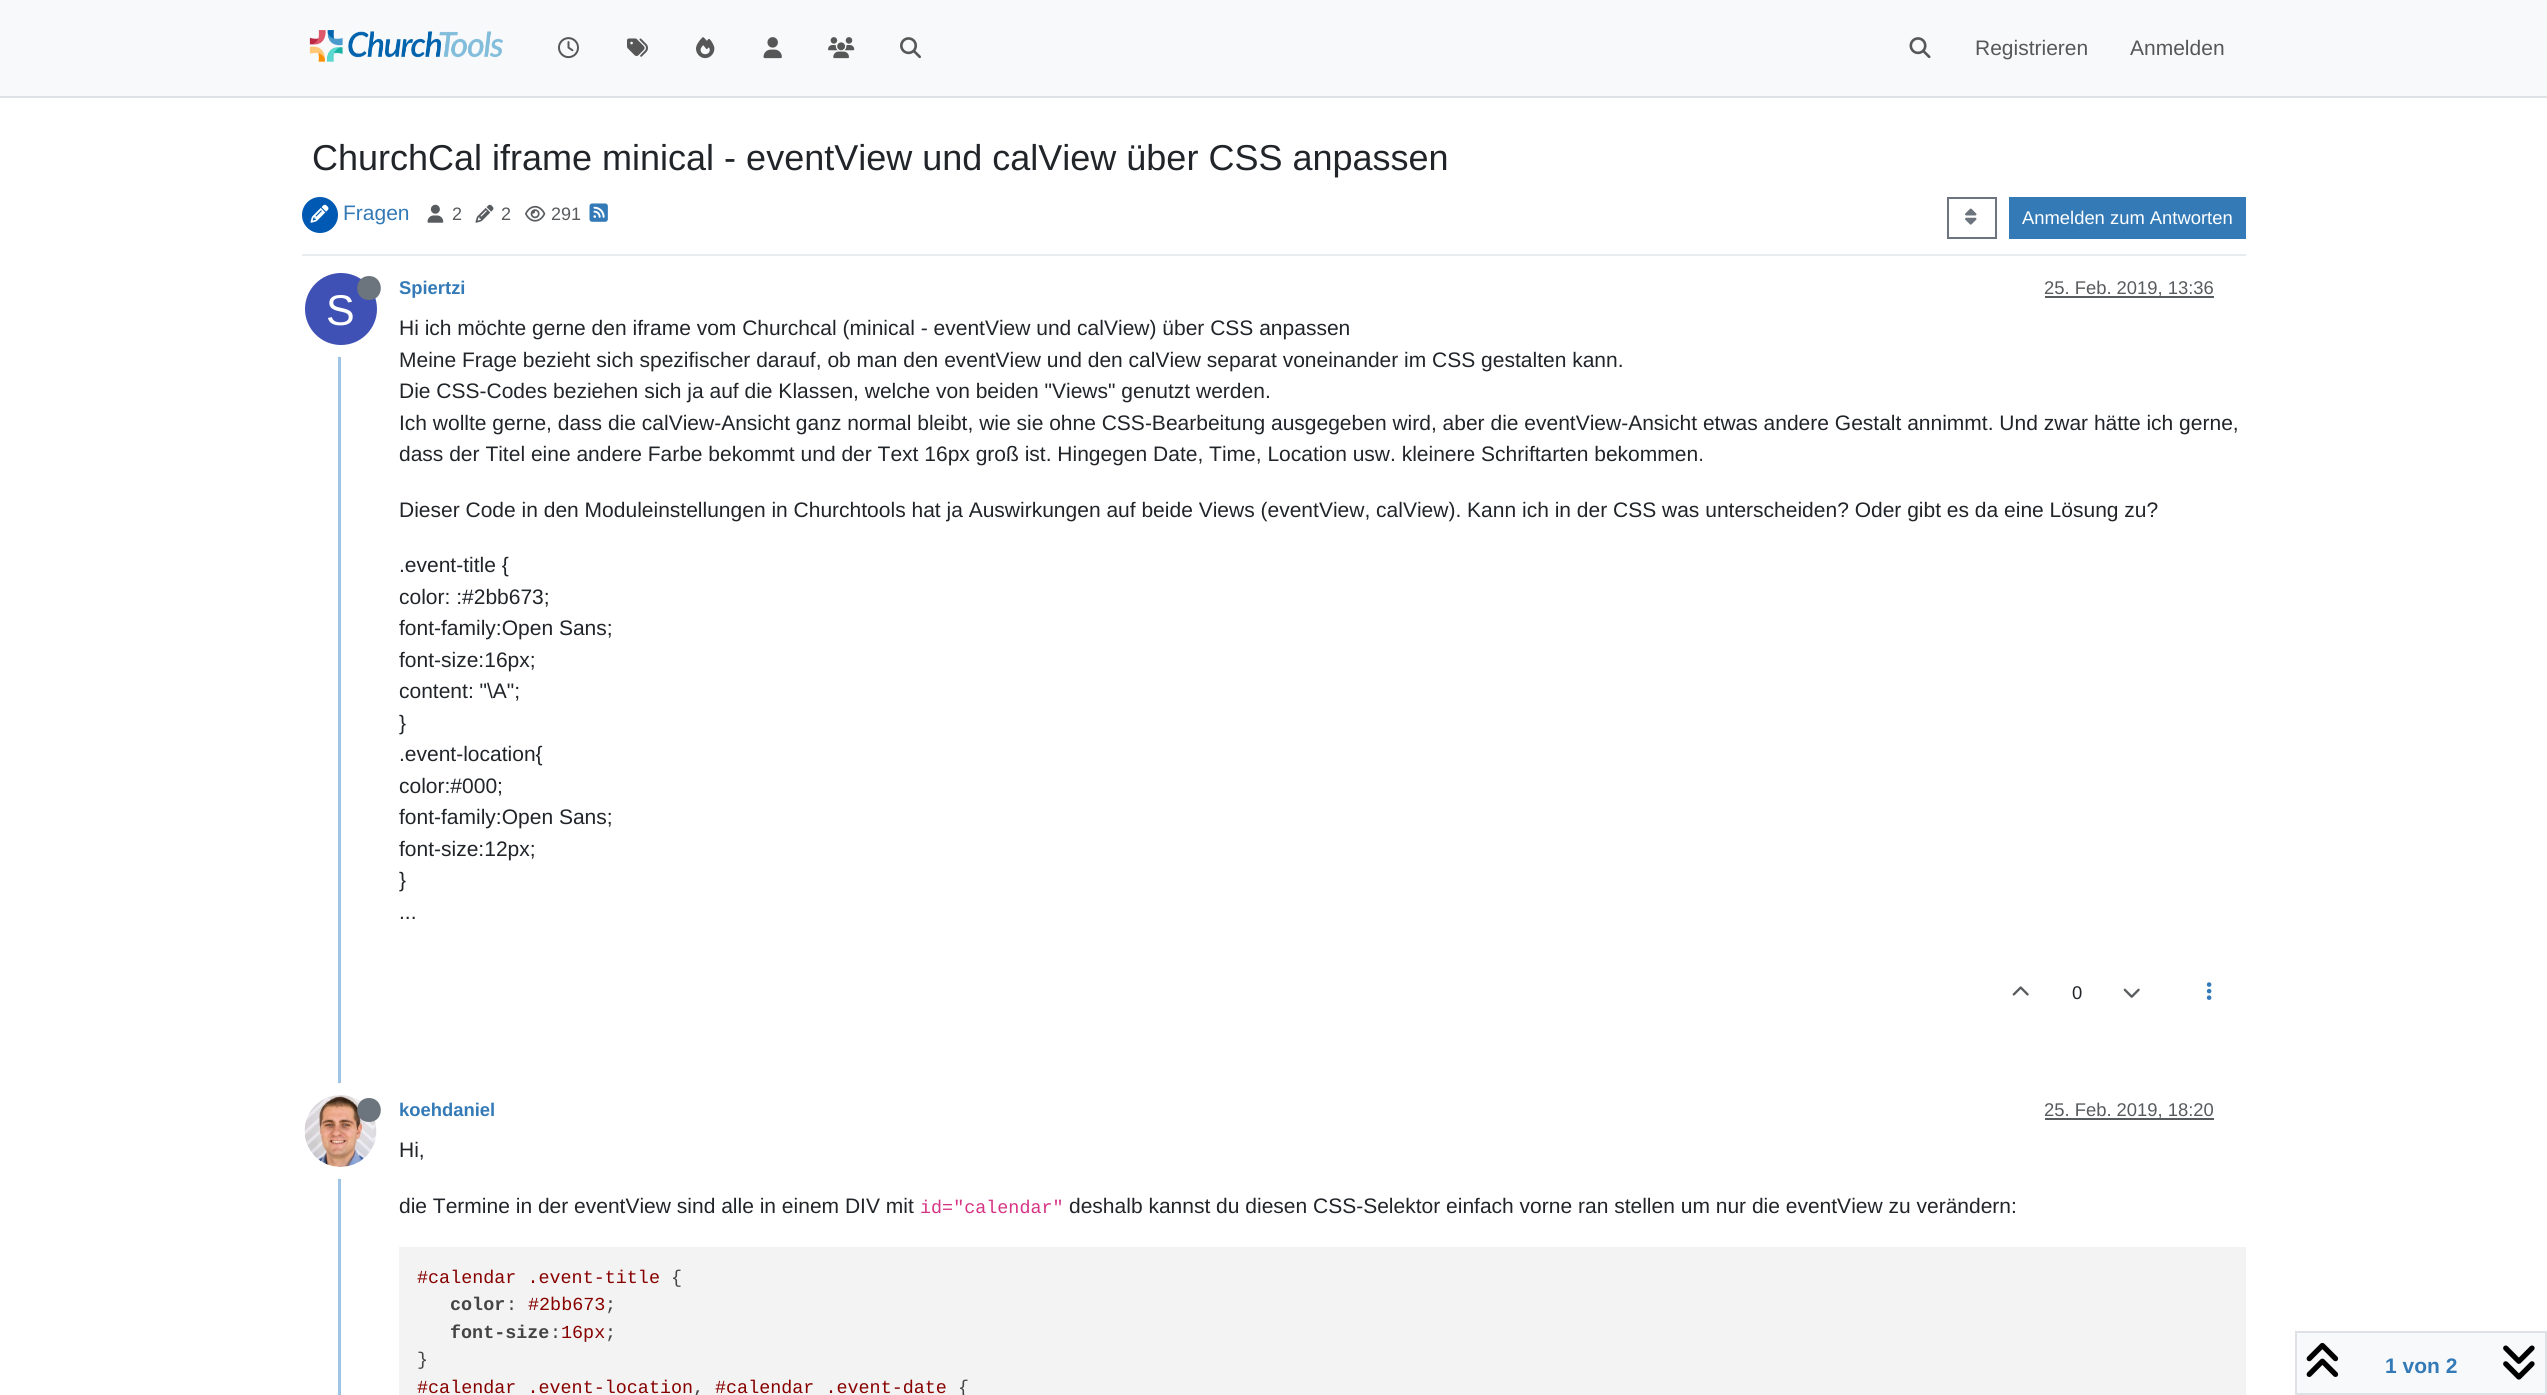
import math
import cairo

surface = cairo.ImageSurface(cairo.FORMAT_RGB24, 2547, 1395)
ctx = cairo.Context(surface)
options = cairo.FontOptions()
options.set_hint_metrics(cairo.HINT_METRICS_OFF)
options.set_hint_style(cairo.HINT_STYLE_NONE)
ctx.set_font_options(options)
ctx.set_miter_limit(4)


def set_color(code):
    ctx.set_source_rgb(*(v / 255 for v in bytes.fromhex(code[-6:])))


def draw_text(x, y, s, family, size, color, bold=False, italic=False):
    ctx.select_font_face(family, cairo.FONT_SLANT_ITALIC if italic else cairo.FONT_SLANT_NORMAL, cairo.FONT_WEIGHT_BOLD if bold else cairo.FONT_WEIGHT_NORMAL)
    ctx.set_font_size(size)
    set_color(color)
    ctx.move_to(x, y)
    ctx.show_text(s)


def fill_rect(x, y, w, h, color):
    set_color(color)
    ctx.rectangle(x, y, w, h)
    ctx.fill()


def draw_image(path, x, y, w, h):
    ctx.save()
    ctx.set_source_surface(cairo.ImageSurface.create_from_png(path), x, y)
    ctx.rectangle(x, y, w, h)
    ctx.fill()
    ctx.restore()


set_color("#ffffff")
ctx.paint()
fill_rect(0, 0, 2547, 96, "#f8f9fa")
fill_rect(0, 96, 2547, 2, "#dee2e6")
draw_image("assets/img1.png", 309, 30, 194, 32)
draw_image("assets/img2.png", 558, 37, 21, 22)
draw_image("assets/img3.png", 627, 38, 21, 19)
draw_image("assets/img4.png", 696, 37, 19, 22)
draw_image("assets/img5.png", 763, 37, 19, 22)
draw_image("assets/img6.png", 828, 37, 27, 22)
draw_image("assets/img7.png", 900, 37, 21, 22)
draw_image("assets/img8.png", 1909, 37, 22, 22)
draw_text(1975, 55, "Registrieren", "Liberation Sans", 21, "#575758")
draw_text(2130, 55, "Anmelden", "Liberation Sans", 21, "#575758")
draw_text(312, 170, "ChurchCal iframe minical - eventView und calView über CSS anpassen", "Liberation Sans", 36, "#212529")
fill_rect(302, 254, 1944, 2, "#e9ecef")
set_color("#0059b2")
ctx.new_path()
ctx.arc(320, 215, 18, 0, 2 * math.pi)
ctx.fill()
draw_image("assets/img9.png", 310, 204, 19, 19)
draw_text(343, 220, "Fragen", "Liberation Sans", 21, "#337ab7")
draw_image("assets/img10.png", 427, 204, 17, 19)
draw_text(452, 220, "2", "Liberation Sans", 18, "#585b5e")
draw_image("assets/img11.png", 475, 204, 19, 19)
draw_text(501, 220, "2", "Liberation Sans", 18, "#585b5e")
draw_image("assets/img12.png", 525, 205, 21, 17)
draw_text(551, 220, "291", "Liberation Sans", 18, "#585b5e")
draw_image("assets/img13.png", 589, 203, 19, 19)
ctx.rectangle(1948, 198, 48, 40)
set_color("#6c757d")
ctx.stroke()
draw_image("assets/img14.png", 1965, 208, 12, 17)
fill_rect(2009, 197, 237, 42, "#337ab7")
draw_text(2022, 224, "Anmelden zum Antworten", "Liberation Sans", 18.4, "#ffffff")
fill_rect(338, 270, 3, 1125, "#a0c4e4")
draw_text(399, 294, "Spiertzi", "Liberation Sans", 18.4, "#337ab7", bold=True)
fill_rect(2045, 296, 169, 2, "#595c5f")
draw_text(2044, 294, "25. Feb. 2019, 13:36", "Liberation Sans", 18.4, "#585b5e")
ctx.new_path()
ctx.arc(341, 309, 42, 0, 2 * math.pi)
set_color("#ffffff")
ctx.set_line_width(12)
ctx.stroke()
set_color("#3f51b5")
ctx.arc(341, 309, 36, 0, 2 * math.pi)
ctx.fill()
set_color("#6c757d")
ctx.new_path()
ctx.move_to(369, 300)
ctx.curve_to(385, 300, 384.5, 276, 369, 276)
ctx.curve_to(353.5, 276, 353, 300, 369, 300)
ctx.close_path()
ctx.fill()
draw_text(326, 325, "S", "Liberation Sans", 43, "#ffffff")
draw_text(399, 335, "Hi ich möchte gerne den iframe vom Churchcal (minical - eventView und calView) über CSS anpassen", "Liberation Sans", 21, "#212529")
draw_text(399, 367, "Meine Frage bezieht sich spezifischer darauf, ob man den eventView und den calView separat voneinander im CSS gestalten kann.", "Liberation Sans", 21, "#212529")
draw_text(399, 398, "Die CSS-Codes beziehen sich ja auf die Klassen, welche von beiden \"Views\" genutzt werden.", "Liberation Sans", 21, "#212529")
draw_text(399, 430, "Ich wollte gerne, dass die calView-Ansicht ganz normal bleibt, wie sie ohne CSS-Bearbeitung ausgegeben wird, aber die eventView-Ansicht etwas andere Gestalt annimmt. Und zwar hätte ich gerne,", "Liberation Sans", 21, "#212529")
draw_text(399, 461, "dass der Titel eine andere Farbe bekommt und der Text 16px groß ist. Hingegen Date, Time, Location usw. kleinere Schriftarten bekommen.", "Liberation Sans", 21, "#212529")
draw_text(399, 517, "Dieser Code in den Moduleinstellungen in Churchtools hat ja Auswirkungen auf beide Views (eventView, calView). Kann ich in der CSS was unterscheiden? Oder gibt es da eine Lösung zu?", "Liberation Sans", 21, "#212529")
draw_text(399, 572, ".event-title {", "Liberation Sans", 21, "#212529")
draw_text(399, 604, "color: :#2bb673;", "Liberation Sans", 21, "#212529")
draw_text(399, 635, "font-family:Open Sans;", "Liberation Sans", 21, "#212529")
draw_text(399, 667, "font-size:16px;", "Liberation Sans", 21, "#212529")
draw_text(399, 698, "content: \"\\A\";", "Liberation Sans", 21, "#212529")
draw_text(399, 730, "}", "Liberation Sans", 21, "#212529")
draw_text(399, 761, ".event-location{", "Liberation Sans", 21, "#212529")
draw_text(399, 793, "color:#000;", "Liberation Sans", 21, "#212529")
draw_text(399, 824, "font-family:Open Sans;", "Liberation Sans", 21, "#212529")
draw_text(399, 856, "font-size:12px;", "Liberation Sans", 21, "#212529")
draw_text(399, 887, "}", "Liberation Sans", 21, "#212529")
draw_text(399, 919, "...", "Liberation Sans", 21, "#212529")
draw_image("assets/img15.png", 2012, 986, 17, 10)
draw_text(2072, 999, "0", "Liberation Sans", 18.4, "#212529")
draw_image("assets/img16.png", 2123, 988, 17, 10)
draw_image("assets/img17.png", 2206, 982, 6, 18)
ctx.arc(341, 1131, 42, 0, 2 * math.pi)
set_color("#ffffff")
ctx.stroke()
draw_image("assets/img18.png", 304, 1095, 73, 72)
set_color("#6c757d")
ctx.new_path()
ctx.move_to(369, 1122)
ctx.curve_to(385, 1122, 384.5, 1098, 369, 1098)
ctx.curve_to(353.5, 1098, 353, 1122, 369, 1122)
ctx.close_path()
ctx.fill()
draw_text(399, 1116, "koehdaniel", "Liberation Sans", 18.4, "#337ab7", bold=True)
fill_rect(2045, 1118, 169, 2, "#595c5f")
draw_text(2044, 1116, "25. Feb. 2019, 18:20", "Liberation Sans", 18.4, "#585b5e")
draw_text(399, 1157, "Hi,", "Liberation Sans", 21, "#212529")
draw_text(399, 1213, "die Termine in der eventView sind alle in einem DIV mit", "Liberation Sans", 21, "#212529")
draw_text(920, 1213, "id=\"calendar\"", "Liberation Mono", 18.4, "#d63384")
draw_text(1069, 1213, "deshalb kannst du diesen CSS-Selektor einfach vorne ran stellen um nur die eventView zu verändern:", "Liberation Sans", 21, "#212529")
fill_rect(399, 1247, 1847, 148, "#f3f3f3")
draw_text(417, 1283, "#calendar .event-title", "Liberation Mono", 18.4, "#880000")
draw_text(671, 1283, "{", "Liberation Mono", 18.4, "#444444")
draw_text(450, 1310, "color", "Liberation Mono", 18.4, "#444444", bold=True)
draw_text(506, 1310, ":", "Liberation Mono", 18.4, "#444444")
draw_text(528, 1310, "#2bb673", "Liberation Mono", 18.4, "#880000")
draw_text(605, 1310, ";", "Liberation Mono", 18.4, "#444444")
draw_text(450, 1338, "font-size", "Liberation Mono", 18.4, "#444444", bold=True)
draw_text(550, 1338, ":", "Liberation Mono", 18.4, "#444444")
draw_text(561, 1338, "16px", "Liberation Mono", 18.4, "#880000")
draw_text(605, 1338, ";", "Liberation Mono", 18.4, "#444444")
draw_text(417, 1365, "}", "Liberation Mono", 18.4, "#444444")
draw_text(417, 1393, "#calendar .event-location", "Liberation Mono", 18.4, "#880000")
draw_text(693, 1393, ",", "Liberation Mono", 18.4, "#444444")
draw_text(715, 1393, "#calendar .event-date", "Liberation Mono", 18.4, "#880000")
draw_text(958, 1393, "{", "Liberation Mono", 18.4, "#444444")
set_color("#f8f9fa")
ctx.rectangle(2296, 1332, 250, 62)
ctx.fill_preserve()
set_color("#dee2e6")
ctx.set_line_width(2)
ctx.stroke()
draw_image("assets/img19.png", 2306, 1342, 33, 35)
draw_text(2385, 1373, "1 von 2", "Liberation Sans", 21, "#337ab7", bold=True)
draw_image("assets/img20.png", 2503, 1345, 32, 35)
surface.write_to_png("output.png")
